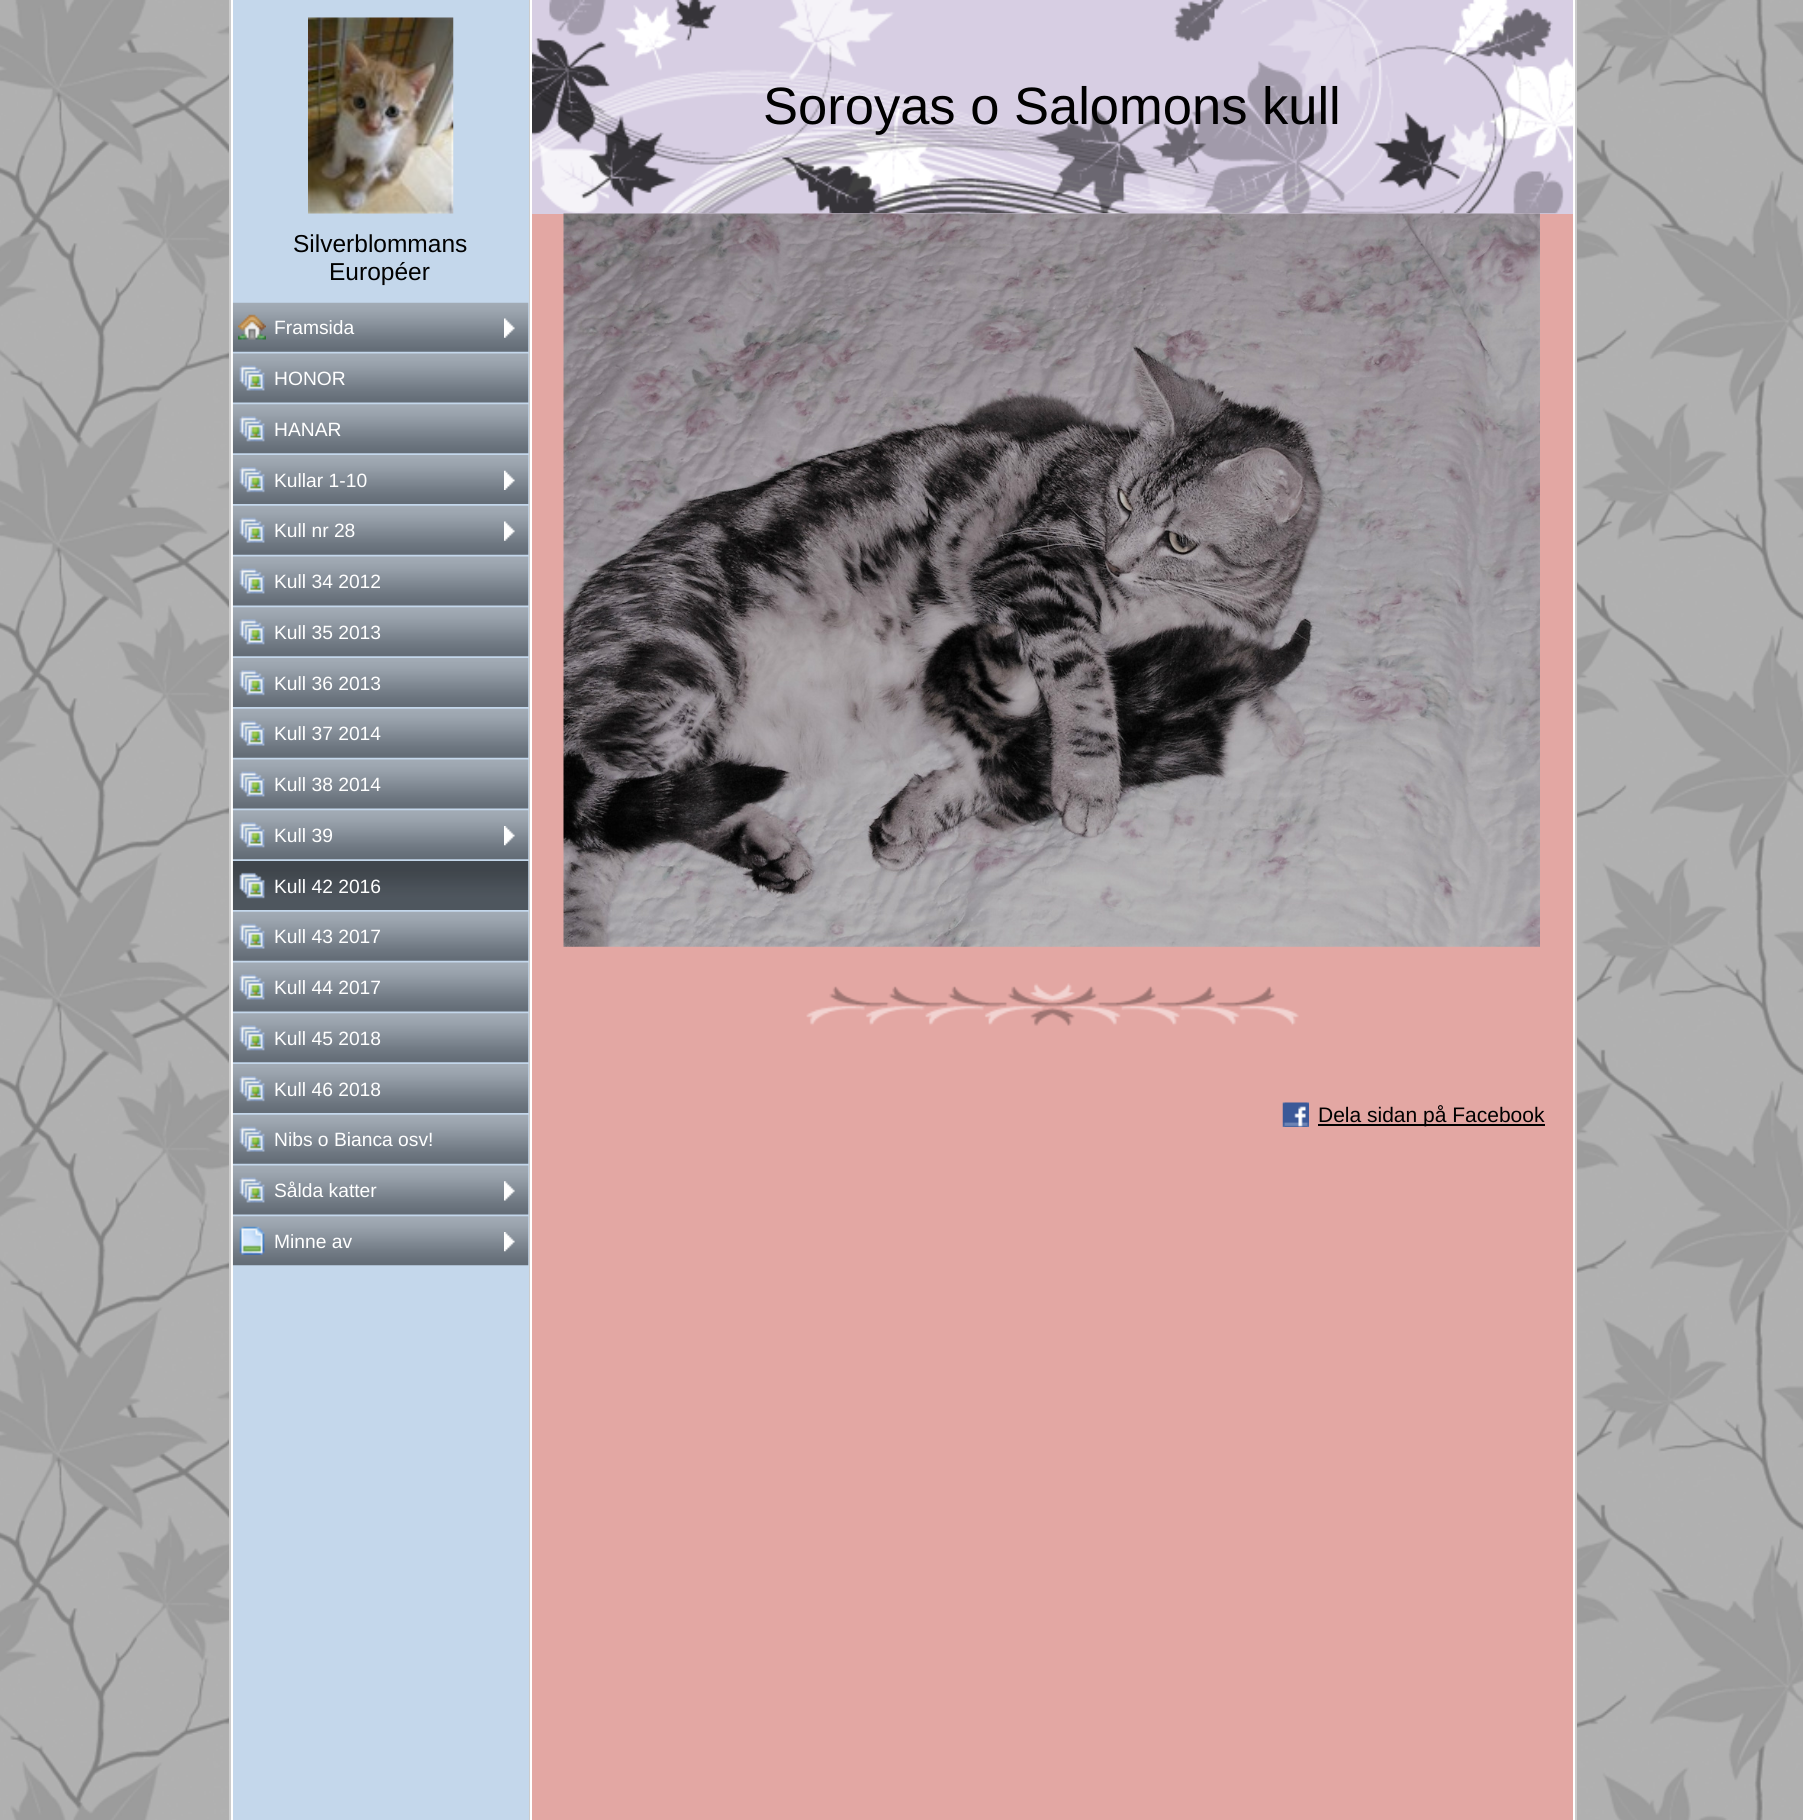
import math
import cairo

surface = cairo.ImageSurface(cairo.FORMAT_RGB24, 1803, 1820)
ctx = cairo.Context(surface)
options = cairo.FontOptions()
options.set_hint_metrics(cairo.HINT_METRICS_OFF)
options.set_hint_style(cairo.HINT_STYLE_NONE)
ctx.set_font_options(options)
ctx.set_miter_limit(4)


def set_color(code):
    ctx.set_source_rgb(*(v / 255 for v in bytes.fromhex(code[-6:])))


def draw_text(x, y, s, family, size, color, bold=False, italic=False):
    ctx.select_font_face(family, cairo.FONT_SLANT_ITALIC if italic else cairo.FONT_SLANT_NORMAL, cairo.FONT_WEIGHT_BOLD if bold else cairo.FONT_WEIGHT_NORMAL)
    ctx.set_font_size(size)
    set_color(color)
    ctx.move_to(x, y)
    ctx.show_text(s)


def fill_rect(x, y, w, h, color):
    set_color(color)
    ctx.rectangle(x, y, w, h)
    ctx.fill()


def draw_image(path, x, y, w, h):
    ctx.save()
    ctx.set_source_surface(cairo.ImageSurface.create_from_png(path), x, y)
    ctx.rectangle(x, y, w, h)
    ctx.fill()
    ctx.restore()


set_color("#ffffff")
ctx.paint()
draw_image("assets/img1.png", 0, 0, 1803, 1820)
fill_rect(231, 0, 1344, 1820, "#ffffff")
fill_rect(229, 0, 2, 1820, "#cccccc")
fill_rect(233, 0, 296, 1820, "#c4d7eb")
draw_image("assets/img2.png", 308, 17, 146, 197)
draw_text(293, 252, "Silverblommans", "Liberation Sans", 24.5, "#000000")
draw_text(329, 280, "Européer", "Liberation Sans", 24.5, "#000000")
draw_image("assets/img3.png", 232, 302, 297, 50)
draw_image("assets/img4.png", 238, 314, 28, 26)
draw_image("assets/img5.png", 504, 318, 11, 20)
draw_text(274, 334, "Framsida", "Liberation Sans", 19.25, "#ffffff")
draw_image("assets/img6.png", 232, 353, 297, 50)
draw_image("assets/img7.png", 239, 365, 26, 26)
draw_text(274, 385, "HONOR", "Liberation Sans", 19.25, "#ffffff")
draw_image("assets/img8.png", 232, 404, 297, 50)
draw_image("assets/img9.png", 239, 416, 26, 26)
draw_text(274, 436, "HANAR", "Liberation Sans", 19.25, "#ffffff")
draw_image("assets/img10.png", 232, 455, 297, 49)
draw_image("assets/img11.png", 239, 467, 26, 26)
draw_image("assets/img12.png", 504, 470, 11, 20)
draw_text(274, 487, "Kullar 1-10", "Liberation Sans", 19.25, "#ffffff")
draw_image("assets/img3.png", 232, 505, 297, 50)
draw_image("assets/img13.png", 239, 517, 26, 26)
draw_image("assets/img5.png", 504, 521, 11, 20)
draw_text(274, 537, "Kull nr 28", "Liberation Sans", 19.25, "#ffffff")
draw_image("assets/img6.png", 232, 556, 297, 50)
draw_image("assets/img7.png", 239, 568, 26, 26)
draw_text(274, 588, "Kull 34 2012", "Liberation Sans", 19.25, "#ffffff")
draw_image("assets/img8.png", 232, 607, 297, 50)
draw_image("assets/img9.png", 239, 619, 26, 26)
draw_text(274, 639, "Kull 35 2013", "Liberation Sans", 19.25, "#ffffff")
draw_image("assets/img10.png", 232, 658, 297, 49)
draw_image("assets/img11.png", 239, 670, 26, 26)
draw_text(274, 690, "Kull 36 2013", "Liberation Sans", 19.25, "#ffffff")
draw_image("assets/img3.png", 232, 708, 297, 50)
draw_image("assets/img13.png", 239, 720, 26, 26)
draw_text(274, 740, "Kull 37 2014", "Liberation Sans", 19.25, "#ffffff")
draw_image("assets/img6.png", 232, 759, 297, 50)
draw_image("assets/img7.png", 239, 771, 26, 26)
draw_text(274, 791, "Kull 38 2014", "Liberation Sans", 19.25, "#ffffff")
draw_image("assets/img8.png", 232, 810, 297, 50)
draw_image("assets/img9.png", 239, 822, 26, 26)
draw_image("assets/img14.png", 504, 826, 11, 20)
draw_text(274, 842, "Kull 39", "Liberation Sans", 19.25, "#ffffff")
draw_image("assets/img15.png", 232, 861, 297, 49)
draw_image("assets/img16.png", 239, 872, 26, 27)
draw_text(274, 893, "Kull 42 2016", "Liberation Sans", 19.25, "#ffffff")
draw_image("assets/img3.png", 232, 911, 297, 50)
draw_image("assets/img13.png", 239, 923, 26, 26)
draw_text(274, 943, "Kull 43 2017", "Liberation Sans", 19.25, "#ffffff")
draw_image("assets/img6.png", 232, 962, 297, 50)
draw_image("assets/img7.png", 239, 974, 26, 26)
draw_text(274, 994, "Kull 44 2017", "Liberation Sans", 19.25, "#ffffff")
draw_image("assets/img8.png", 232, 1013, 297, 50)
draw_image("assets/img9.png", 239, 1025, 26, 26)
draw_text(274, 1045, "Kull 45 2018", "Liberation Sans", 19.25, "#ffffff")
draw_image("assets/img10.png", 232, 1064, 297, 49)
draw_image("assets/img11.png", 239, 1076, 26, 26)
draw_text(274, 1096, "Kull 46 2018", "Liberation Sans", 19.25, "#ffffff")
draw_image("assets/img3.png", 232, 1114, 297, 50)
draw_image("assets/img13.png", 239, 1126, 26, 26)
draw_text(274, 1146, "Nibs o Bianca osv!", "Liberation Sans", 19.25, "#ffffff")
draw_image("assets/img6.png", 232, 1165, 297, 50)
draw_image("assets/img7.png", 239, 1177, 26, 26)
draw_image("assets/img17.png", 504, 1181, 11, 20)
draw_text(274, 1197, "Sålda katter", "Liberation Sans", 19.25, "#ffffff")
draw_image("assets/img8.png", 232, 1216, 297, 50)
draw_image("assets/img18.png", 239, 1226, 26, 29)
draw_image("assets/img14.png", 504, 1232, 11, 20)
draw_text(274, 1248, "Minne av", "Liberation Sans", 19.25, "#ffffff")
fill_rect(529, 0, 1, 1820, "#cccccc")
fill_rect(532, 214, 1041, 1606, "#e3a7a3")
fill_rect(532, 0, 1041, 214, "#d7cee3")
draw_image("assets/img19.png", 532, 0, 1041, 214)
draw_text(763, 124, "Soroyas o Salomons kull", "Liberation Sans", 52.5, "#000000")
draw_image("assets/img20.png", 563, 213, 977, 734)
draw_image("assets/img21.png", 806, 983, 493, 43)
draw_image("assets/img22.png", 1282, 1102, 27, 25)
fill_rect(1318, 1124, 227, 2, "#000000")
draw_text(1318, 1122, "Dela sidan på Facebook", "Liberation Sans", 21, "#000000")
fill_rect(1575, 0, 2, 1820, "#cccccc")
surface.write_to_png("output.png")
